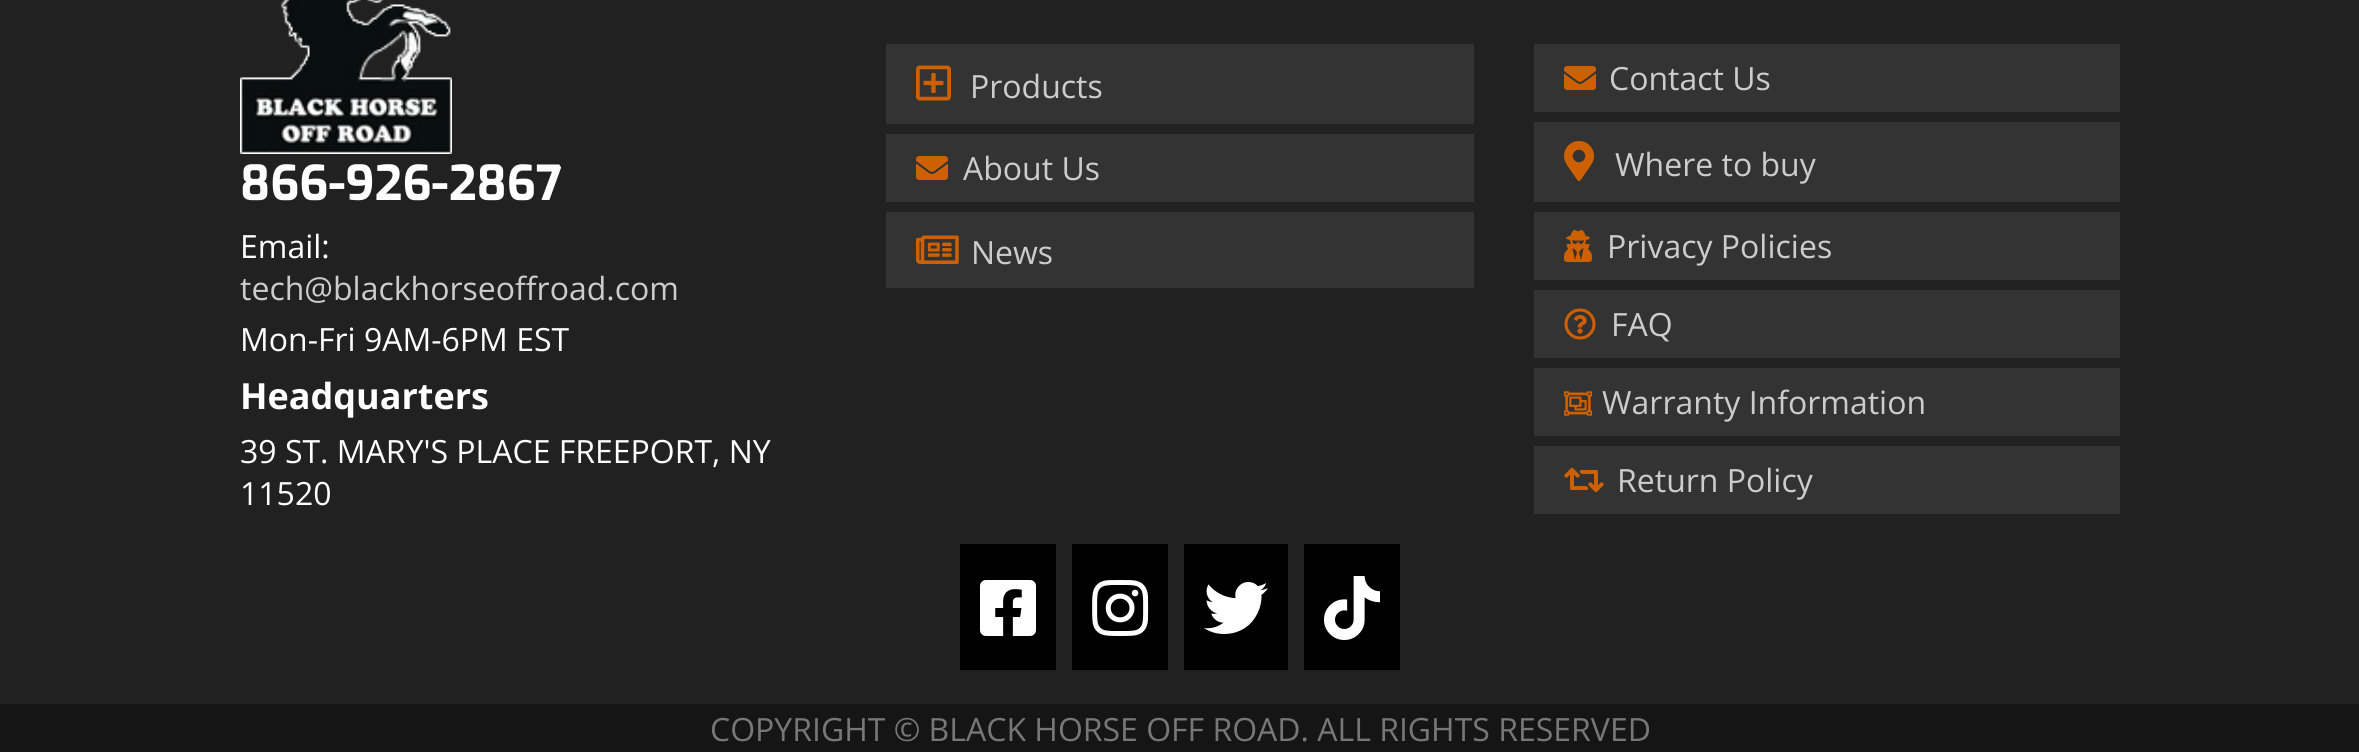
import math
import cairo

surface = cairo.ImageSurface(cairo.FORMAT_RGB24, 2359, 752)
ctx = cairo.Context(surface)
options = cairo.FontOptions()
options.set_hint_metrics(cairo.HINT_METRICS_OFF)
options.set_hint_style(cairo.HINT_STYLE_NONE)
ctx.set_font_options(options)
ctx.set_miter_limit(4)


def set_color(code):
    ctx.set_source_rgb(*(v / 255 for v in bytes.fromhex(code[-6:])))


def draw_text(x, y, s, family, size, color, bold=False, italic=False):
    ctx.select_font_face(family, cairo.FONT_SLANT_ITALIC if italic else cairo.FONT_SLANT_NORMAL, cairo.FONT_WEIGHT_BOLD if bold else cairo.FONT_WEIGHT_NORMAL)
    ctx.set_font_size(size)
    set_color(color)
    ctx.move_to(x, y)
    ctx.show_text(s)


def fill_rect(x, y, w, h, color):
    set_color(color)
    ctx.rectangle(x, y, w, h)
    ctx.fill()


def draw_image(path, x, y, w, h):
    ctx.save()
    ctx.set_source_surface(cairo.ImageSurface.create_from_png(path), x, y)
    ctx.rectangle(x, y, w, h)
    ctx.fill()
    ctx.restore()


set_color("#212121")
ctx.paint()
draw_image("assets/img1.png", 240, 0, 212, 154)
draw_text(240, 200, "866-926-2867", "Exo", 48, "#ffffff", bold=True)
draw_text(240, 258, "Email:", "Open Sans", 32, "#ffffff")
draw_text(240, 300, "tech@blackhorseoffroad.com", "Open Sans", 32, "#cccccc")
draw_text(240, 351, "Mon-Fri 9AM-6PM EST", "Open Sans", 32, "#ffffff")
draw_text(240, 409, "Headquarters", "Open Sans", 36, "#ffffff", bold=True)
draw_text(240, 463, "39 ST. MARY'S PLACE FREEPORT, NY", "Open Sans", 32, "#ffffff")
draw_text(240, 505, "11520", "Open Sans", 32, "#ffffff")
fill_rect(886, 44, 588, 80, "#333333")
draw_image("assets/img2.png", 916, 65, 35, 36)
draw_text(970, 98, "Products", "Open Sans", 32, "#cccccc")
fill_rect(886, 134, 588, 68, "#333333")
draw_image("assets/img3.png", 916, 156, 32, 24)
draw_text(963, 180, "About Us", "Open Sans", 32, "#cccccc")
fill_rect(886, 212, 588, 76, "#333333")
draw_image("assets/img4.png", 916, 235, 43, 29)
draw_text(971, 264, "News", "Open Sans", 32, "#cccccc")
fill_rect(1534, 44, 586, 68, "#333333")
draw_image("assets/img3.png", 1564, 66, 32, 24)
draw_text(1609, 90, "Contact Us", "Open Sans", 32, "#cccccc")
fill_rect(1534, 122, 586, 80, "#333333")
draw_image("assets/img5.png", 1564, 141, 30, 40)
draw_text(1615, 176, "Where to buy", "Open Sans", 32, "#cccccc")
fill_rect(1534, 212, 586, 68, "#333333")
draw_image("assets/img6.png", 1564, 230, 28, 32)
draw_text(1607, 258, "Privacy Policies", "Open Sans", 32, "#cccccc")
fill_rect(1534, 290, 586, 68, "#333333")
draw_image("assets/img7.png", 1564, 308, 32, 32)
draw_text(1611, 336, "FAQ", "Open Sans", 32, "#cccccc")
fill_rect(1534, 368, 586, 68, "#333333")
draw_image("assets/img8.png", 1564, 391, 28, 25)
draw_text(1602, 414, "Warranty Information", "Open Sans", 32, "#cccccc")
fill_rect(1534, 446, 586, 68, "#333333")
draw_image("assets/img9.png", 1564, 467, 40, 26)
draw_text(1617, 492, "Return Policy", "Open Sans", 32, "#cccccc")
fill_rect(960, 544, 96, 126, "#000000")
draw_image("assets/img10.png", 980, 580, 56, 56)
fill_rect(1072, 544, 96, 126, "#000000")
draw_image("assets/img11.png", 1092, 580, 57, 56)
fill_rect(1184, 544, 104, 126, "#000000")
draw_image("assets/img12.png", 1204, 582, 64, 52)
fill_rect(1304, 544, 96, 126, "#000000")
draw_image("assets/img13.png", 1324, 576, 56, 64)
fill_rect(0, 704, 2359, 48, "#151515")
draw_text(710, 741, "COPYRIGHT © BLACK HORSE OFF ROAD. ALL RIGHTS RESERVED", "Open Sans", 32, "#777777")
surface.write_to_png("output.png")
